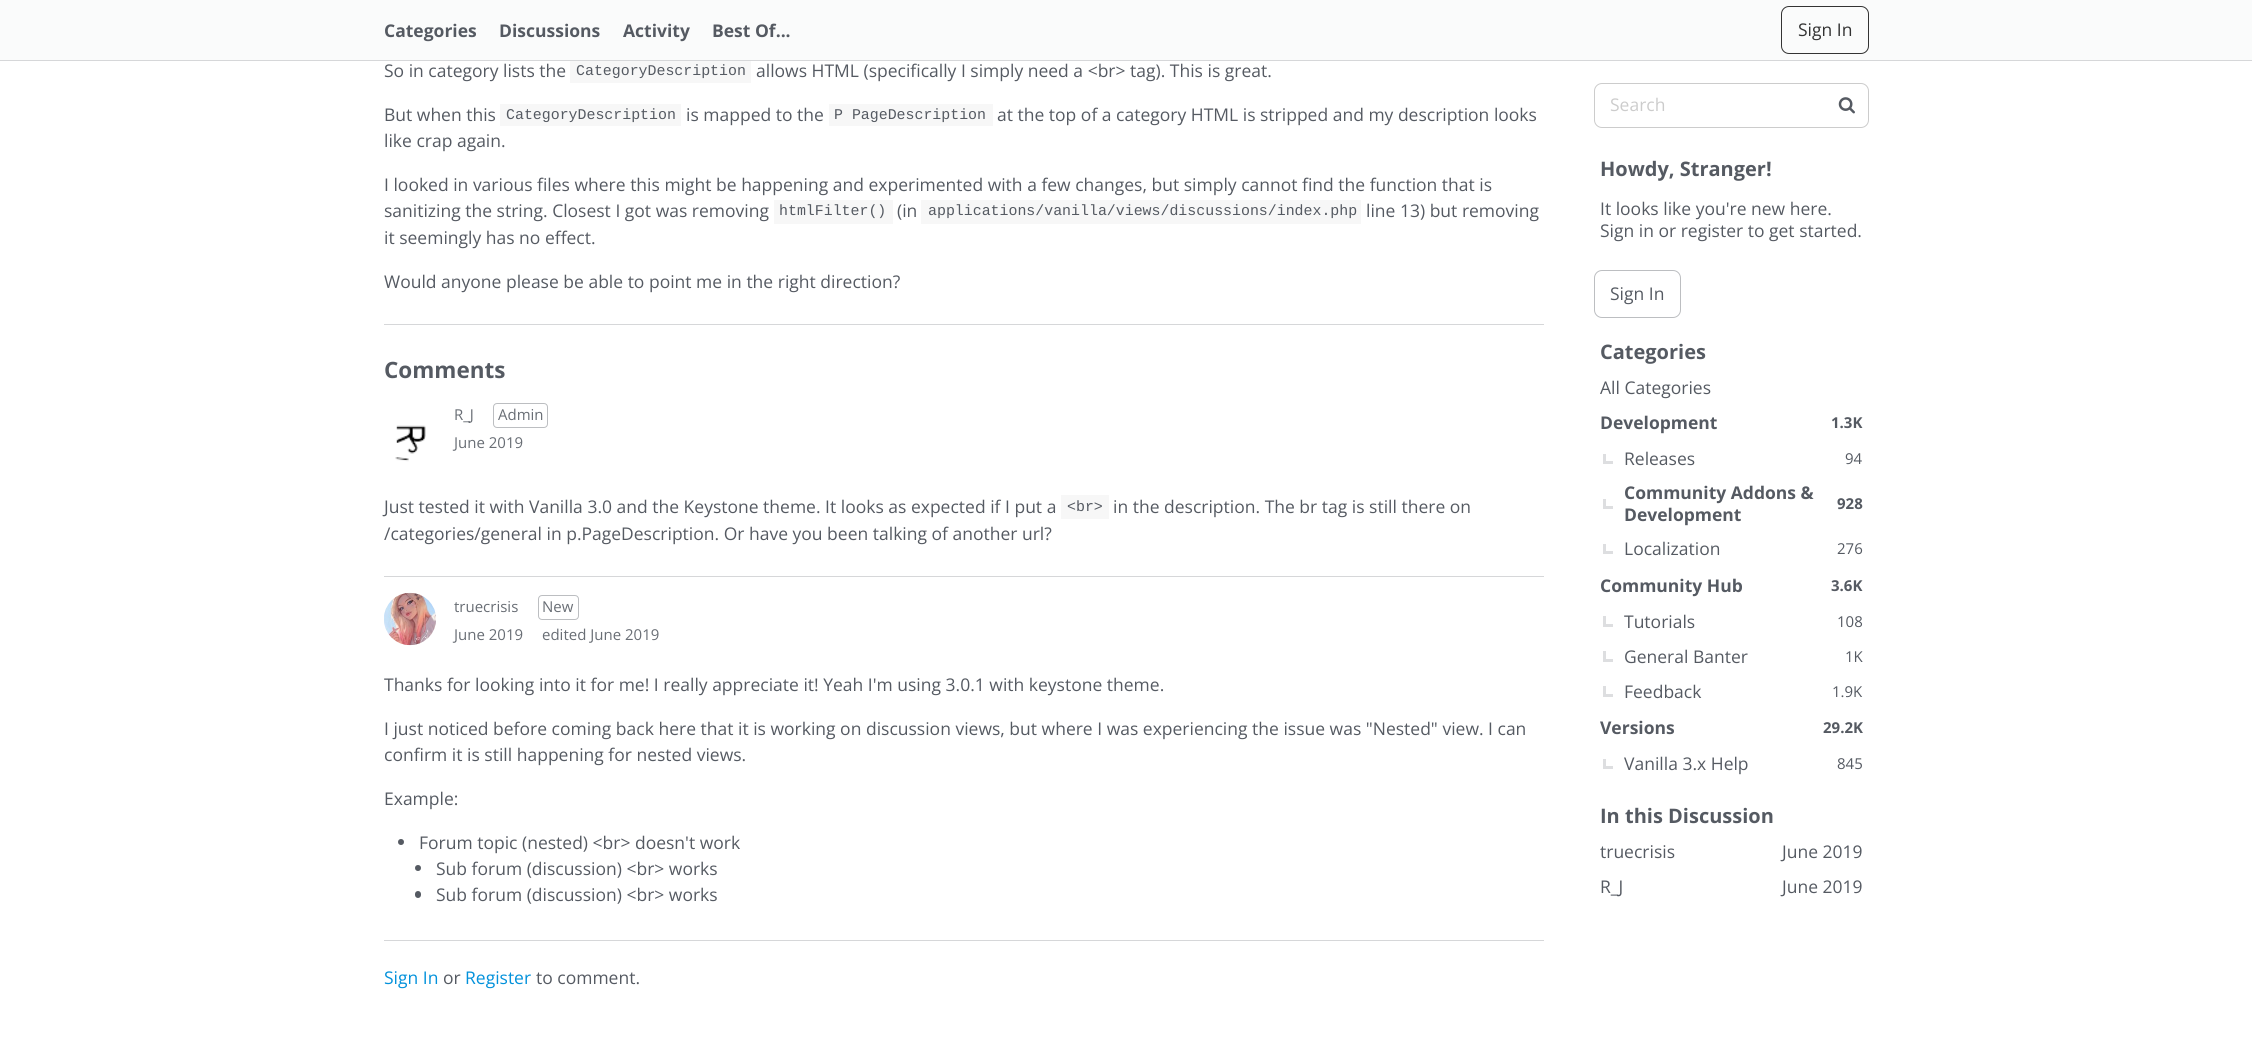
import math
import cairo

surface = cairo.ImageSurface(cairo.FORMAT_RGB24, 2252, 1042)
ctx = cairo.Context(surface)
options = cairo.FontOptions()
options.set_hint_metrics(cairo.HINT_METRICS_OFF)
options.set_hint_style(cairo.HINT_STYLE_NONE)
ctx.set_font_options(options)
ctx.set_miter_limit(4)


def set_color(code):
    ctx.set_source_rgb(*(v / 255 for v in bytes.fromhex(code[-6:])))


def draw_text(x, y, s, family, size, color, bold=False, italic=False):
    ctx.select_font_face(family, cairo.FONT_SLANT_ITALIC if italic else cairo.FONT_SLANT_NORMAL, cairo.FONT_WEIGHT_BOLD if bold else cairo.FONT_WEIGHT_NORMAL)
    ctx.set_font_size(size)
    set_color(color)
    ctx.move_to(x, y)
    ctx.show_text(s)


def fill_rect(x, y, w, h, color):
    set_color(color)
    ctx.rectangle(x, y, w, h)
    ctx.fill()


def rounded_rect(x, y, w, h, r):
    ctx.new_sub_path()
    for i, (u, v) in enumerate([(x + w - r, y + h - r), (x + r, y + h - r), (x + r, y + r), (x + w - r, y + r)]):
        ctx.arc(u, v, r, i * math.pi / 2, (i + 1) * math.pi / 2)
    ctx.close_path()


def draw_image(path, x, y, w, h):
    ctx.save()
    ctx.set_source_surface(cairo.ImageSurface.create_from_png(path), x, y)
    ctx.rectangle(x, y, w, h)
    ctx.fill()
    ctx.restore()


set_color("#ffffff")
ctx.paint()
fill_rect(0, 0, 2252, 60, "#fafbfb")
fill_rect(0, 60, 2252, 1, "#d6d7d9")
draw_text(384, 37, "Categories", "Open Sans", 17.5, "#555a62", bold=True)
draw_text(499, 37, "Discussions", "Open Sans", 17.5, "#555a62", bold=True)
draw_text(623, 37, "Activity", "Open Sans", 17.5, "#555a62", bold=True)
draw_text(712, 37, "Best Of...", "Open Sans", 17.5, "#555a62", bold=True)
rounded_rect(1781.5, 6.5, 87, 47, 7.5)
set_color("#333333")
ctx.set_line_width(1)
ctx.stroke()
draw_text(1798, 36, "Sign In", "Open Sans", 17.5, "#333333")
fill_rect(384, 324, 1160, 1, "#d6d7d9")
draw_text(384, 77, "So in category lists the", "Open Sans", 17.5, "#555a62")
fill_rect(570, 61, 181, 22, "#f7f7f7")
draw_text(576, 75, "CategoryDescription", "Liberation Mono", 14.9, "#555a62")
draw_text(756, 77, "allows HTML (specifically I simply need a <br> tag). This is great.", "Open Sans", 17.5, "#555a62")
draw_text(384, 121, "But when this", "Open Sans", 17.5, "#555a62")
fill_rect(500, 104, 181, 22, "#f7f7f7")
draw_text(506, 119, "CategoryDescription", "Liberation Mono", 14.9, "#555a62")
draw_text(686, 121, "is mapped to the", "Open Sans", 17.5, "#555a62")
fill_rect(829, 104, 164, 22, "#f7f7f7")
draw_text(834, 119, "P PageDescription", "Liberation Mono", 14.9, "#555a62")
draw_text(997, 121, "at the top of a category HTML is stripped and my description looks", "Open Sans", 17.5, "#555a62")
draw_text(384, 147, "like crap again.", "Open Sans", 17.5, "#555a62")
draw_text(384, 191, "I looked in various files where this might be happening and experimented with a few changes, but simply cannot find the function that is", "Open Sans", 17.5, "#555a62")
draw_text(384, 217, "sanitizing the string. Closest I got was removing", "Open Sans", 17.5, "#555a62")
fill_rect(774, 200, 119, 24, "#f7f7f7")
draw_text(779, 215, "htmlFilter()", "Liberation Mono", 14.9, "#555a62")
draw_text(897, 217, "(in", "Open Sans", 17.5, "#555a62")
fill_rect(921, 200, 440, 24, "#f7f7f7")
draw_text(928, 215, "applications/vanilla/views/discussions/index.php", "Liberation Mono", 14.9, "#555a62")
draw_text(1366, 217, "line 13) but removing", "Open Sans", 17.5, "#555a62")
draw_text(384, 244, "it seemingly has no effect.", "Open Sans", 17.5, "#555a62")
draw_text(384, 288, "Would anyone please be able to point me in the right direction?", "Open Sans", 17.5, "#555a62")
draw_text(384, 378, "Comments", "Open Sans", 22.5, "#555a62", bold=True)
draw_text(454, 420, "R_J", "Open Sans", 15, "#696e75")
draw_image("assets/img1.png", 395, 425, 31, 37)
rounded_rect(493.5, 403.5, 54, 24, 3.5)
set_color("#bcbec1")
ctx.stroke()
draw_text(498, 420, "Admin", "Open Sans", 15, "#696e75")
draw_text(454, 448, "June 2019", "Open Sans", 15, "#696e75")
draw_text(384, 513, "Just tested it with Vanilla 3.0 and the Keystone theme. It looks as expected if I put a", "Open Sans", 17.5, "#555a62")
fill_rect(1061, 495, 48, 24, "#f7f7f7")
draw_text(1067, 511, "<br>", "Liberation Mono", 14.9, "#555a62")
draw_text(1113, 513, "in the description. The br tag is still there on", "Open Sans", 17.5, "#555a62")
draw_text(384, 540, "/categories/general in p.PageDescription. Or have you been talking of another url?", "Open Sans", 17.5, "#555a62")
fill_rect(384, 576, 1160, 1, "#d6d7d9")
fill_rect(384, 940, 1160, 1, "#d6d7d9")
draw_image("assets/img2.png", 384, 592, 52, 54)
draw_text(454, 612, "truecrisis", "Open Sans", 15, "#696e75")
rounded_rect(538.5, 595.5, 40, 24, 3.5)
set_color("#bcbec1")
ctx.stroke()
draw_text(542, 612, "New", "Open Sans", 15, "#696e75")
draw_text(454, 640, "June 2019", "Open Sans", 15, "#696e75")
draw_text(542, 640, "edited June 2019", "Open Sans", 15, "#696e75")
draw_text(384, 691, "Thanks for looking into it for me! I really appreciate it! Yeah I'm using 3.0.1 with keystone theme.", "Open Sans", 17.5, "#555a62")
draw_text(384, 735, "I just noticed before coming back here that it is working on discussion views, but where I was experiencing the issue was \"Nested\" view. I can", "Open Sans", 17.5, "#555a62")
draw_text(384, 761, "confirm it is still happening for nested views.", "Open Sans", 17.5, "#555a62")
draw_text(384, 805, "Example:", "Open Sans", 17.5, "#555a62")
ctx.new_path()
ctx.arc(401, 842, 3, 0, 2 * math.pi)
ctx.fill()
draw_text(419, 849, "Forum topic (nested) <br> doesn't work", "Open Sans", 17.5, "#555a62")
ctx.new_path()
ctx.arc(418, 868, 3, 0, 2 * math.pi)
ctx.fill()
draw_text(436, 875, "Sub forum (discussion) <br> works", "Open Sans", 17.5, "#555a62")
rounded_rect(415, 891, 6, 7, 3)
ctx.fill()
draw_text(436, 901, "Sub forum (discussion) <br> works", "Open Sans", 17.5, "#555a62")
draw_text(384, 984, "Sign In", "Open Sans", 17.5, "#0291db")
draw_text(443, 984, "or", "Open Sans", 17.5, "#555a62")
draw_text(465, 984, "Register", "Open Sans", 17.5, "#0291db")
draw_text(536, 984, "to comment.", "Open Sans", 17.5, "#555a62")
rounded_rect(1594.5, 83.5, 274, 44, 7.5)
set_color("#cccccc")
ctx.stroke()
draw_text(1610, 111, "Search", "Open Sans", 17.5, "#cccccc")
draw_image("assets/img3.png", 1838, 97, 17, 17)
draw_text(1600, 176, "Howdy, Stranger!", "Open Sans", 20, "#555a62", bold=True)
draw_text(1600, 215, "It looks like you're new here.", "Open Sans", 17.5, "#555a62")
draw_text(1600, 237, "Sign in or register to get started.", "Open Sans", 17.5, "#555a62")
rounded_rect(1594.5, 270.5, 86, 47, 7.5)
set_color("#bcbec1")
ctx.stroke()
draw_text(1610, 300, "Sign In", "Open Sans", 17.5, "#555a62")
draw_text(1600, 359, "Categories", "Open Sans", 20, "#555a62", bold=True)
draw_text(1600, 394, "All Categories", "Open Sans", 17.5, "#555a62")
draw_text(1600, 429, "Development", "Open Sans", 17.5, "#555a62", bold=True)
draw_text(1831, 428, "1.3K", "Open Sans", 15, "#555a62", bold=True)
fill_rect(1603, 461, 10, 3, "#dddee0")
fill_rect(1603, 454, 3, 10, "#dddee0")
draw_text(1624, 465, "Releases", "Open Sans", 17.5, "#555a62")
draw_text(1845, 464, "94", "Open Sans", 15, "#555a62")
fill_rect(1603, 506, 10, 3, "#dddee0")
fill_rect(1603, 499, 3, 10, "#dddee0")
draw_text(1624, 499, "Community Addons &", "Open Sans", 17.5, "#555a62", bold=True)
draw_text(1837, 509, "928", "Open Sans", 15, "#555a62", bold=True)
draw_text(1624, 521, "Development", "Open Sans", 17.5, "#555a62", bold=True)
fill_rect(1603, 551, 10, 3, "#dddee0")
fill_rect(1603, 544, 3, 10, "#dddee0")
draw_text(1624, 555, "Localization", "Open Sans", 17.5, "#555a62")
draw_text(1837, 554, "276", "Open Sans", 15, "#555a62")
draw_text(1600, 592, "Community Hub", "Open Sans", 17.5, "#555a62", bold=True)
draw_text(1831, 591, "3.6K", "Open Sans", 15, "#555a62", bold=True)
fill_rect(1603, 624, 10, 3, "#dddee0")
fill_rect(1603, 616, 3, 10, "#dddee0")
draw_text(1624, 628, "Tutorials", "Open Sans", 17.5, "#555a62")
draw_text(1837, 627, "108", "Open Sans", 15, "#555a62")
fill_rect(1603, 659, 10, 3, "#dddee0")
fill_rect(1603, 651, 3, 10, "#dddee0")
draw_text(1624, 663, "General Banter", "Open Sans", 17.5, "#555a62")
draw_text(1845, 662, "1K", "Open Sans", 15, "#555a62")
fill_rect(1603, 694, 10, 3, "#dddee0")
fill_rect(1603, 686, 3, 10, "#dddee0")
draw_text(1624, 698, "Feedback", "Open Sans", 17.5, "#555a62")
draw_text(1832, 697, "1.9K", "Open Sans", 15, "#555a62")
draw_text(1600, 734, "Versions", "Open Sans", 17.5, "#555a62", bold=True)
draw_text(1823, 733, "29.2K", "Open Sans", 15, "#555a62", bold=True)
fill_rect(1603, 766, 10, 3, "#dddee0")
fill_rect(1603, 759, 3, 10, "#dddee0")
draw_text(1624, 770, "Vanilla 3.x Help", "Open Sans", 17.5, "#555a62")
draw_text(1837, 769, "845", "Open Sans", 15, "#555a62")
draw_text(1600, 823, "In this Discussion", "Open Sans", 20, "#555a62", bold=True)
draw_text(1600, 858, "truecrisis", "Open Sans", 17.5, "#555a62")
draw_text(1782, 858, "June 2019", "Open Sans", 17.5, "#555a62")
draw_text(1600, 893, "R_J", "Open Sans", 17.5, "#555a62")
draw_text(1782, 893, "June 2019", "Open Sans", 17.5, "#555a62")
surface.write_to_png("output.png")
